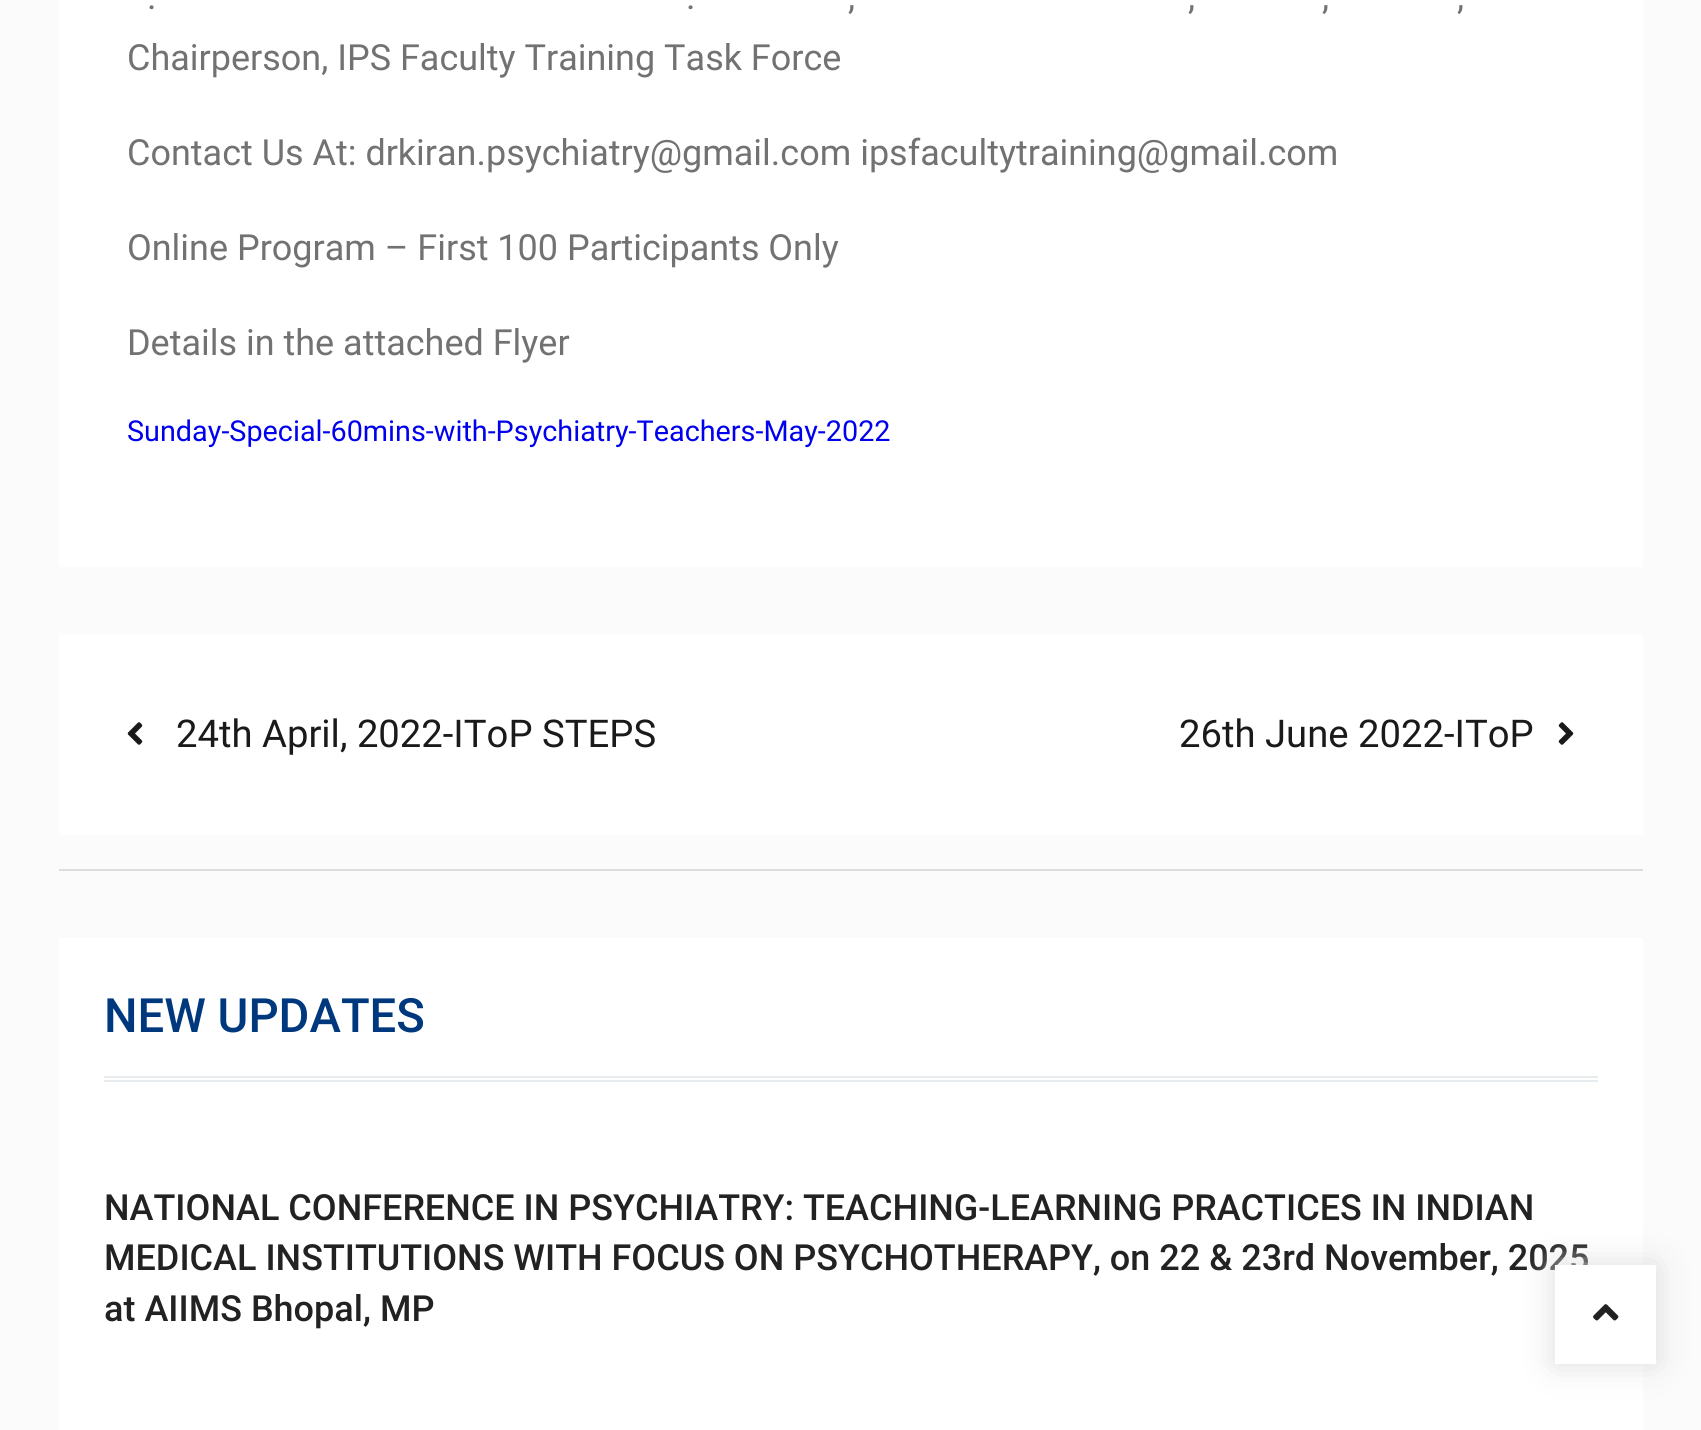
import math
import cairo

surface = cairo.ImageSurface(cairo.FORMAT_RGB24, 1701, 1430)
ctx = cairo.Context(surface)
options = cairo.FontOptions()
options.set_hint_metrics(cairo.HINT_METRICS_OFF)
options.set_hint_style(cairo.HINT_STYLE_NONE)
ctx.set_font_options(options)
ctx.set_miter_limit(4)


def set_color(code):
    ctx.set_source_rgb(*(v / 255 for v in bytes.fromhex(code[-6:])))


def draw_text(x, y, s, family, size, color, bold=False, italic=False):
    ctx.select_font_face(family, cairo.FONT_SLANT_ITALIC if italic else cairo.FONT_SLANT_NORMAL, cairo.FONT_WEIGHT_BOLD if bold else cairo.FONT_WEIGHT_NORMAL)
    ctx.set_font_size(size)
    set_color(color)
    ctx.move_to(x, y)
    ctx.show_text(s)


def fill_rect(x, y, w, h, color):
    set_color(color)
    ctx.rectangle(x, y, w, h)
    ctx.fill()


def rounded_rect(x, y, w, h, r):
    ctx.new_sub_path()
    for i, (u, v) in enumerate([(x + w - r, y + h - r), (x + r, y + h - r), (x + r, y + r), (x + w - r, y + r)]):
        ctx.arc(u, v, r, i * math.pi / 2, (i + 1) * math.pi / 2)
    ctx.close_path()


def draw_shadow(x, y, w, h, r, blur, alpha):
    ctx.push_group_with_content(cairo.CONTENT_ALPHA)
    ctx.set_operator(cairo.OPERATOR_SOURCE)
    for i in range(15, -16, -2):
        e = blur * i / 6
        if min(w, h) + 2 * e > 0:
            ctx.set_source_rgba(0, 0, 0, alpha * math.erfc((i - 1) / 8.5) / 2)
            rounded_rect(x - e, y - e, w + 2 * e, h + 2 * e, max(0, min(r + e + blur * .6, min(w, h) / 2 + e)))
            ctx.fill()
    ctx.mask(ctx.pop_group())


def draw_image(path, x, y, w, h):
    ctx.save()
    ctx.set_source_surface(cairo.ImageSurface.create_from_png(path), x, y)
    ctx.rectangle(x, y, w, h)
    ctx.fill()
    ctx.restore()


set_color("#fbfbfb")
ctx.paint()
fill_rect(59, 869, 1584, 2, "#dddddd")
fill_rect(59, 0, 1584, 567, "#ffffff")
draw_text(147, 9, ".", "Roboto", 36, "#727272")
draw_text(686, 9, ".", "Roboto", 36, "#727272")
draw_text(848, 9, ",", "Roboto", 36, "#727272")
draw_text(1188, 9, ",", "Roboto", 36, "#727272")
draw_text(1322, 9, ",", "Roboto", 36, "#727272")
draw_text(1457, 9, ",", "Roboto", 36, "#727272")
draw_text(127, 70, "Chairperson, IPS Faculty Training Task Force", "Roboto", 36, "#727272")
draw_text(127, 165, "Contact Us At: drkiran.psychiatry@gmail.com ipsfacultytraining@gmail.com", "Roboto", 36, "#727272")
draw_text(127, 260, "Online Program – First 100 Participants Only", "Roboto", 36, "#727272")
draw_text(127, 355, "Details in the attached Flyer", "Roboto", 36, "#727272")
draw_text(127, 441, "Sunday-Special-60mins-with-Psychiatry-Teachers-May-2022", "Roboto", 28.8, "#0000ee")
fill_rect(59, 635, 1584, 200, "#ffffff")
draw_image("assets/img1.png", 127, 722, 16, 23)
draw_text(176, 747, "24th April, 2022-IToP STEPS", "Roboto", 38.25, "#1a1a1a")
draw_text(1179, 747, "26th June 2022-IToP", "Roboto", 38.25, "#1a1a1a")
draw_image("assets/img2.png", 1558, 722, 16, 23)
fill_rect(59, 938, 1584, 492, "#ffffff")
fill_rect(104, 1076, 1494, 2, "#e7ecef")
fill_rect(104, 1080, 1494, 2, "#e7ecef")
draw_text(104, 1032, "NEW UPDATES", "Roboto Medium", 47.25, "#00387d")
draw_text(104, 1220, "NATIONAL CONFERENCE IN PSYCHIATRY: TEACHING-LEARNING PRACTICES IN INDIAN", "Roboto Medium", 36, "#222222")
draw_text(104, 1270, "MEDICAL INSTITUTIONS WITH FOCUS ON PSYCHOTHERAPY, on 22 & 23rd November, 2025", "Roboto Medium", 36, "#222222")
draw_text(104, 1321, "at AIIMS Bhopal, MP", "Roboto Medium", 36, "#222222")
set_color("#dddddd")
draw_shadow(1555, 1265, 101, 99, 0, 16, 1)
fill_rect(1555, 1265, 101, 99, "#ffffff")
draw_image("assets/img3.png", 1593, 1304, 26, 17)
surface.write_to_png("output.png")
